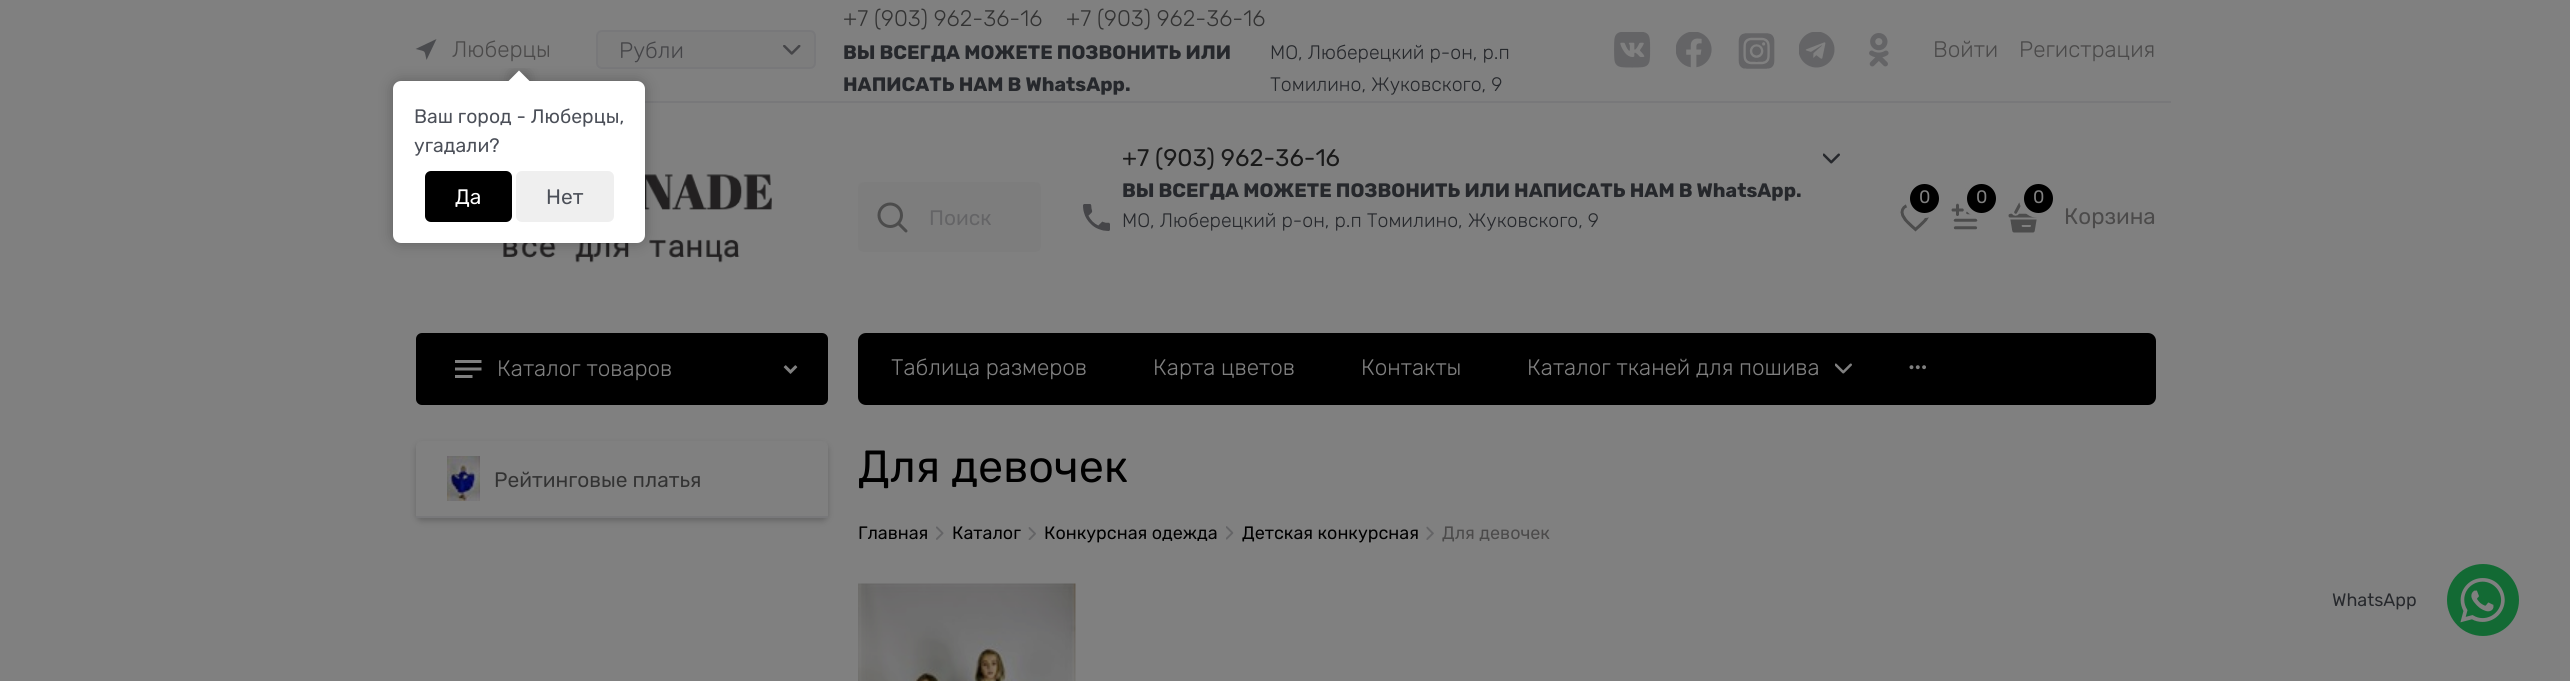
import math
import cairo

surface = cairo.ImageSurface(cairo.FORMAT_RGB24, 2570, 681)
ctx = cairo.Context(surface)
options = cairo.FontOptions()
options.set_hint_metrics(cairo.HINT_METRICS_OFF)
options.set_hint_style(cairo.HINT_STYLE_NONE)
ctx.set_font_options(options)
ctx.set_miter_limit(4)


def set_color(code):
    ctx.set_source_rgb(*(v / 255 for v in bytes.fromhex(code[-6:])))


def draw_text(x, y, s, family, size, color, bold=False, italic=False):
    ctx.select_font_face(family, cairo.FONT_SLANT_ITALIC if italic else cairo.FONT_SLANT_NORMAL, cairo.FONT_WEIGHT_BOLD if bold else cairo.FONT_WEIGHT_NORMAL)
    ctx.set_font_size(size)
    set_color(color)
    ctx.move_to(x, y)
    ctx.show_text(s)


def fill_rect(x, y, w, h, color):
    set_color(color)
    ctx.rectangle(x, y, w, h)
    ctx.fill()


def rounded_rect(x, y, w, h, r):
    ctx.new_sub_path()
    for i, (u, v) in enumerate([(x + w - r, y + h - r), (x + r, y + h - r), (x + r, y + r), (x + w - r, y + r)]):
        ctx.arc(u, v, r, i * math.pi / 2, (i + 1) * math.pi / 2)
    ctx.close_path()


def draw_shadow(x, y, w, h, r, blur, alpha):
    ctx.push_group_with_content(cairo.CONTENT_ALPHA)
    ctx.set_operator(cairo.OPERATOR_SOURCE)
    for i in range(15, -16, -2):
        e = blur * i / 6
        if min(w, h) + 2 * e > 0:
            ctx.set_source_rgba(0, 0, 0, alpha * math.erfc((i - 1) / 8.5) / 2)
            rounded_rect(x - e, y - e, w + 2 * e, h + 2 * e, max(0, min(r + e + blur * .6, min(w, h) / 2 + e)))
            ctx.fill()
    ctx.mask(ctx.pop_group())


def draw_image(path, x, y, w, h):
    ctx.save()
    ctx.set_source_surface(cairo.ImageSurface.create_from_png(path), x, y)
    ctx.rectangle(x, y, w, h)
    ctx.fill()
    ctx.restore()


set_color("#808080")
ctx.paint()
fill_rect(645, 101, 1526, 2, "#78787a")
set_color("#4a4b4e")
ctx.new_path()
ctx.move_to(415.5, 49)
ctx.curve_to(426.5, 52, 424, 49.5, 426.5, 60)
ctx.line_to(436.5, 39)
ctx.close_path()
ctx.fill()
draw_text(452, 57, "Люберцы", "Rubik Light", 22.5, "#4b4a4a")
set_color("#7d7d7d")
rounded_rect(597, 31, 218, 37, 5)
ctx.fill_preserve()
set_color("#78787a")
ctx.stroke()
draw_text(619, 58, "Рубли", "Rubik Light", 22.5, "#454548")
draw_image("assets/img1.png", 783, 45, 18, 10)
draw_text(843, 26, "+7 (903) 962-36-16", "Rubik Light", 22.5, "#333333")
draw_text(1066, 26, "+7 (903) 962-36-16", "Rubik Light", 22.5, "#333333")
draw_text(843, 59, "ВЫ ВСЕГДА МОЖЕТЕ ПОЗВОНИТЬ ИЛИ", "Rubik", 19.5, "#26282c", bold=True)
draw_text(843, 91, "НАПИСАТЬ НАМ В WhatsApp.", "Rubik", 19.5, "#26282c", bold=True)
draw_text(1270, 59, "МО, Люберецкий р-он, р.п", "Rubik Light", 19.5, "#26282c")
draw_text(1270, 91, "Томилино, Жуковского, 9", "Rubik Light", 19.5, "#26282c")
draw_image("assets/img2.png", 1614, 32, 37, 36)
draw_image("assets/img3.png", 1676, 32, 36, 36)
draw_image("assets/img4.png", 1738, 33, 37, 36)
draw_image("assets/img5.png", 1799, 32, 36, 36)
draw_image("assets/img6.png", 1869, 33, 20, 34)
draw_text(1933, 57, "Войти", "Rubik Light", 22.5, "#4b4a4a")
draw_text(2019, 57, "Регистрация", "Rubik Light", 22.5, "#4b4a4a")
draw_image("assets/img7.png", 503, 174, 269, 89)
set_color("#7d7d7d")
rounded_rect(858, 182, 183, 70, 6)
ctx.fill()
draw_image("assets/img8.png", 877, 202, 31, 31)
draw_text(929, 225, "Поиск", "Rubik", 21, "#646466")
draw_text(1122, 166, "+7 (903) 962-36-16", "Rubik", 24, "#1a1a1a")
draw_text(1122, 197, "ВЫ ВСЕГДА МОЖЕТЕ ПОЗВОНИТЬ ИЛИ НАПИСАТЬ НАМ В WhatsApp.", "Rubik", 19.5, "#26282c", bold=True)
draw_text(1122, 227, "МО, Люберецкий р-он, р.п Томилино, Жуковского, 9", "Rubik Light", 19.5, "#26282c")
draw_image("assets/img9.png", 1823, 153, 17, 11)
draw_image("assets/img10.png", 1083, 204, 27, 27)
draw_image("assets/img11.png", 1900, 204, 29, 28)
set_color("#000000")
ctx.arc(1924.5, 198.5, 17, 0, 2 * math.pi)
ctx.fill_preserve()
set_color("#808080")
ctx.set_line_width(5)
ctx.stroke()
draw_text(1919, 203, "0", "Rubik", 18, "#808080")
draw_image("assets/img12.png", 1951, 203, 27, 27)
set_color("#000000")
ctx.arc(1981.5, 198.5, 17, 0, 2 * math.pi)
ctx.fill_preserve()
set_color("#808080")
ctx.stroke()
draw_text(1976, 203, "0", "Rubik", 18, "#808080")
draw_image("assets/img13.png", 2008, 202, 30, 31)
set_color("#000000")
ctx.arc(2038.5, 198.5, 17, 0, 2 * math.pi)
ctx.fill_preserve()
set_color("#808080")
ctx.stroke()
draw_text(2033, 203, "0", "Rubik", 18, "#808080")
draw_text(2064, 224, "Корзина", "Rubik", 22.5, "#4b4a4a")
set_color("#000000")
rounded_rect(416, 333, 412, 72, 6)
ctx.fill()
draw_image("assets/img14.png", 455, 360, 27, 18)
draw_text(497, 376, "Каталог товаров", "Rubik Light", 22.5, "#808080")
draw_image("assets/img15.png", 783, 365, 15, 9)
set_color("#000000")
rounded_rect(858, 333, 1298, 72, 8)
ctx.fill()
draw_text(891, 375, "Таблица размеров", "Rubik Light", 22.5, "#808080")
draw_text(1153, 375, "Карта цветов", "Rubik Light", 22.5, "#808080")
draw_text(1361, 375, "Контакты", "Rubik Light", 22.5, "#808080")
draw_text(1527, 375, "Каталог тканей для пошива", "Rubik Light", 22.5, "#808080")
draw_image("assets/img16.png", 1835, 363, 17, 11)
draw_image("assets/img17.png", 1909, 365, 17, 5)
set_color("#000000")
draw_shadow(416, 444, 412, 77, 6, 3, 0.2)
set_color("#808080")
rounded_rect(416, 441, 412, 77, 6)
ctx.fill()
fill_rect(416, 516, 412, 2, "#78787a")
set_color("#808080")
ctx.new_path()
ctx.move_to(424, 441)
ctx.line_to(820, 441)
ctx.curve_to(824.5, 441, 828, 444.5, 828, 449)
ctx.line_to(828, 516)
ctx.line_to(416, 516)
ctx.line_to(416, 449)
ctx.curve_to(416, 444.5, 419.5, 441, 424, 441)
ctx.close_path()
ctx.fill()
draw_image("assets/img18.png", 447, 456, 33, 45)
draw_text(494, 487, "Рейтинговые платья", "Rubik", 21, "#333333")
draw_text(858, 482, "Для девочек", "Rubik", 45, "#000000")
draw_text(858, 539, "Главная", "Rubik", 18, "#000000")
draw_image("assets/img19.png", 936, 526, 8, 14)
draw_text(952, 539, "Каталог", "Rubik", 18, "#000000")
draw_image("assets/img20.png", 1028, 527, 8, 13)
draw_text(1044, 539, "Конкурсная одежда", "Rubik", 18, "#000000")
draw_image("assets/img21.png", 1226, 526, 8, 14)
draw_text(1242, 539, "Детская конкурсная", "Rubik", 18, "#000000")
draw_image("assets/img22.png", 1426, 526, 8, 14)
draw_text(1442, 539, "Для девочек", "Rubik", 18, "#4b4a4a")
draw_image("assets/img23.png", 858, 583, 218, 98)
set_color("#000000")
draw_shadow(393, 81, 252, 162, 8, 7, 0.25)
set_color("#ffffff")
rounded_rect(393, 81, 252, 162, 8)
ctx.fill()
ctx.save()
ctx.rectangle(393, 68, 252, 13)
ctx.clip()
set_color("#000000")
draw_shadow(512, 74, 15, 15, 0, 7, 0.25)
ctx.restore()
ctx.save()
ctx.rectangle(393, 68, 252, 13)
ctx.clip()
ctx.new_path()
ctx.move_to(519, 70.5)
ctx.line_to(529.5, 81)
ctx.line_to(519, 92)
ctx.line_to(508.5, 81)
ctx.close_path()
ctx.fill()
ctx.restore()
draw_text(414, 123, "Ваш город - Люберцы,", "Rubik", 19.5, "#4b4f58")
draw_text(414, 152, "угадали?", "Rubik", 19.5, "#4b4f58")
set_color("#000000")
rounded_rect(425, 171, 87, 51, 6)
ctx.fill()
draw_text(455, 204, "Да", "Rubik", 21, "#ffffff")
set_color("#efefef")
rounded_rect(516, 171, 98, 51, 6)
ctx.fill()
draw_text(546, 204, "Нет", "Rubik", 21, "#4b4f58")
draw_text(2332, 606, "WhatsApp", "Rubik", 18, "#26282c")
set_color("#136a34")
ctx.new_path()
ctx.arc(2483, 600, 36, 0, 2 * math.pi)
ctx.fill()
draw_image("assets/img24.png", 2460, 578, 45, 45)
surface.write_to_png("output.png")
